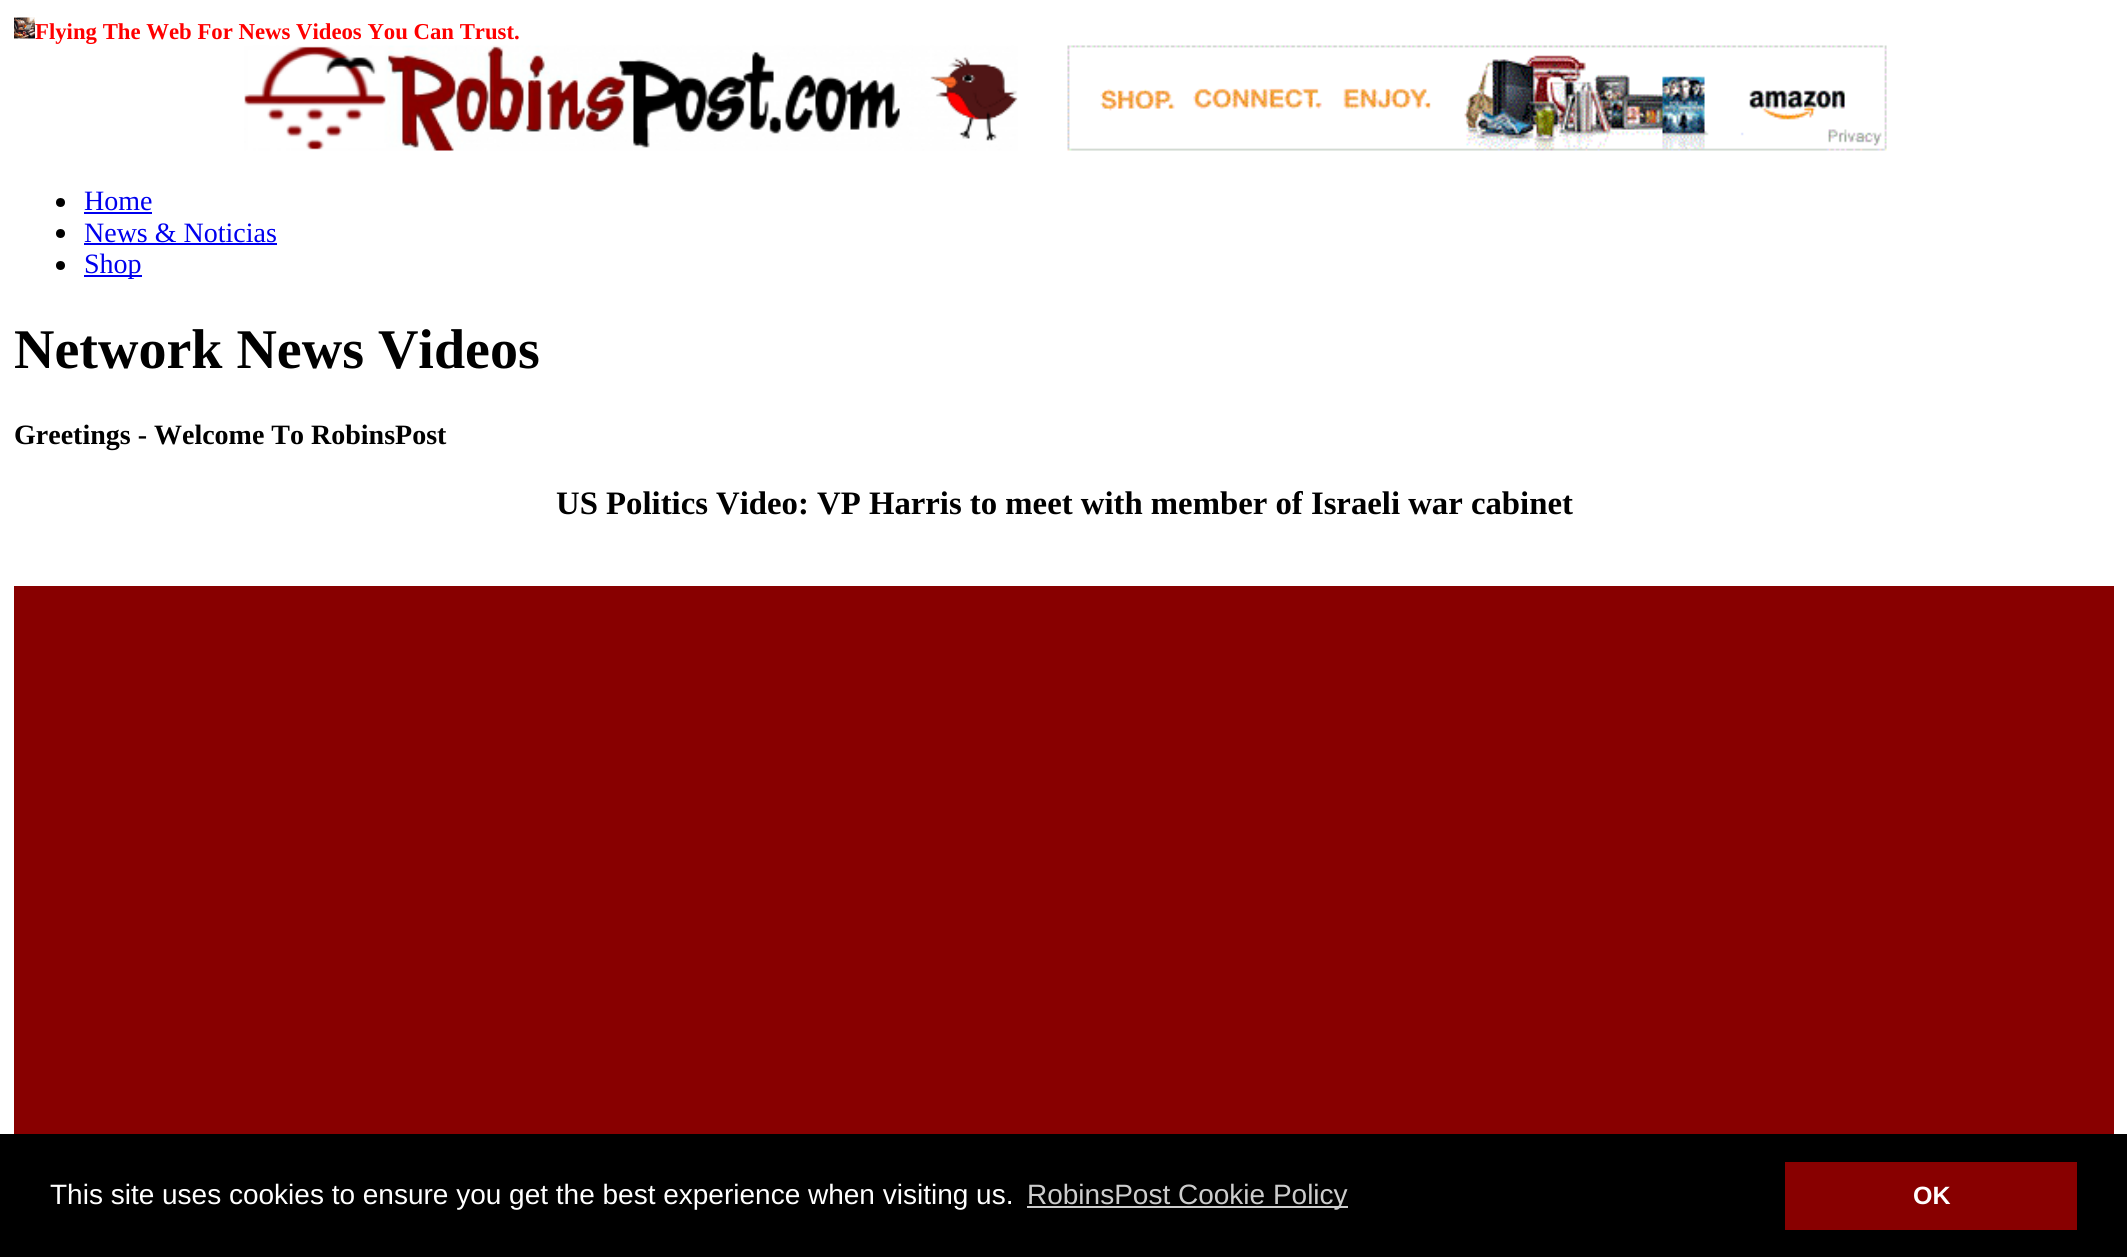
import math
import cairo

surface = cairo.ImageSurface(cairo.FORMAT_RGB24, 2127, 1257)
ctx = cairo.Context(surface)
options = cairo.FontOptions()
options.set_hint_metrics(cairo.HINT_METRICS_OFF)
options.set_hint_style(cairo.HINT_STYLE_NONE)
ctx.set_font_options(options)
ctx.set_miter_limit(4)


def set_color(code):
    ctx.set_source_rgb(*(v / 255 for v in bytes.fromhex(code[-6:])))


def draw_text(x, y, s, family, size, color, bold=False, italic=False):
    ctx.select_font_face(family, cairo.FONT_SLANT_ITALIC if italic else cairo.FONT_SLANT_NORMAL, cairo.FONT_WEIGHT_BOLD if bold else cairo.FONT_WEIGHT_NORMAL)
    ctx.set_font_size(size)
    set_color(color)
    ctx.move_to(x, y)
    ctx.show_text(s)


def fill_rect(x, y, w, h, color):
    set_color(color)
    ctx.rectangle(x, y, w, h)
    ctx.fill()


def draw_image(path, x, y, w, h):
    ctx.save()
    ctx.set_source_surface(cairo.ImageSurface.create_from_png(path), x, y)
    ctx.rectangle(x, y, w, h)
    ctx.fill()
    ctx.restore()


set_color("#ffffff")
ctx.paint()
draw_image("assets/img1.png", 14, 17, 21, 22)
draw_text(35, 39, "Flying The Web For News Videos You Can Trust.", "Liberation Serif", 22.75, "#ff0000", bold=True)
draw_image("assets/img2.png", 244, 45, 774, 106)
draw_image("assets/img3.png", 1067, 45, 820, 106)
set_color("#000000")
ctx.arc(60.5, 202.5, 4.5, 0, 2 * math.pi)
ctx.fill()
draw_text(84, 210, "Home", "Liberation Serif", 28, "#0000ee")
fill_rect(84, 212, 68, 2, "#0000ee")
set_color("#000000")
ctx.new_path()
ctx.arc(60.5, 233.5, 4.5, 0, 2 * math.pi)
ctx.fill()
draw_text(84, 242, "News & Noticias", "Liberation Serif", 28, "#0000ee")
fill_rect(84, 243, 193, 2, "#0000ee")
set_color("#000000")
ctx.new_path()
ctx.arc(60.5, 265.5, 4.5, 0, 2 * math.pi)
ctx.fill()
fill_rect(84, 275, 58, 2, "#0000ee")
draw_text(84, 273, "Shop", "Liberation Serif", 28, "#0000ee")
draw_text(14, 368, "Network News Videos", "Liberation Serif", 56, "#000000", bold=True)
draw_text(14, 444, "Greetings - Welcome To RobinsPost", "Liberation Serif", 28, "#000000", bold=True)
draw_text(556, 514, "US Politics Video: VP Harris to meet with member of Israeli war cabinet", "Liberation Serif", 32.75, "#000000", bold=True)
fill_rect(14, 586, 2100, 548, "#880000")
fill_rect(0, 1134, 2127, 123, "#000000")
draw_text(50, 1204, "This site uses cookies to ensure you get the best experience when visiting us.", "Liberation Sans", 28, "#ffffff")
fill_rect(1027, 1206, 321, 2, "#cccccc")
draw_text(1027, 1204, "RobinsPost Cookie Policy", "Liberation Sans", 28, "#cccccc")
fill_rect(1785, 1162, 292, 68, "#880000")
draw_text(1913, 1204, "OK", "Liberation Sans", 25, "#ffffff", bold=True)
surface.write_to_png("output.png")
